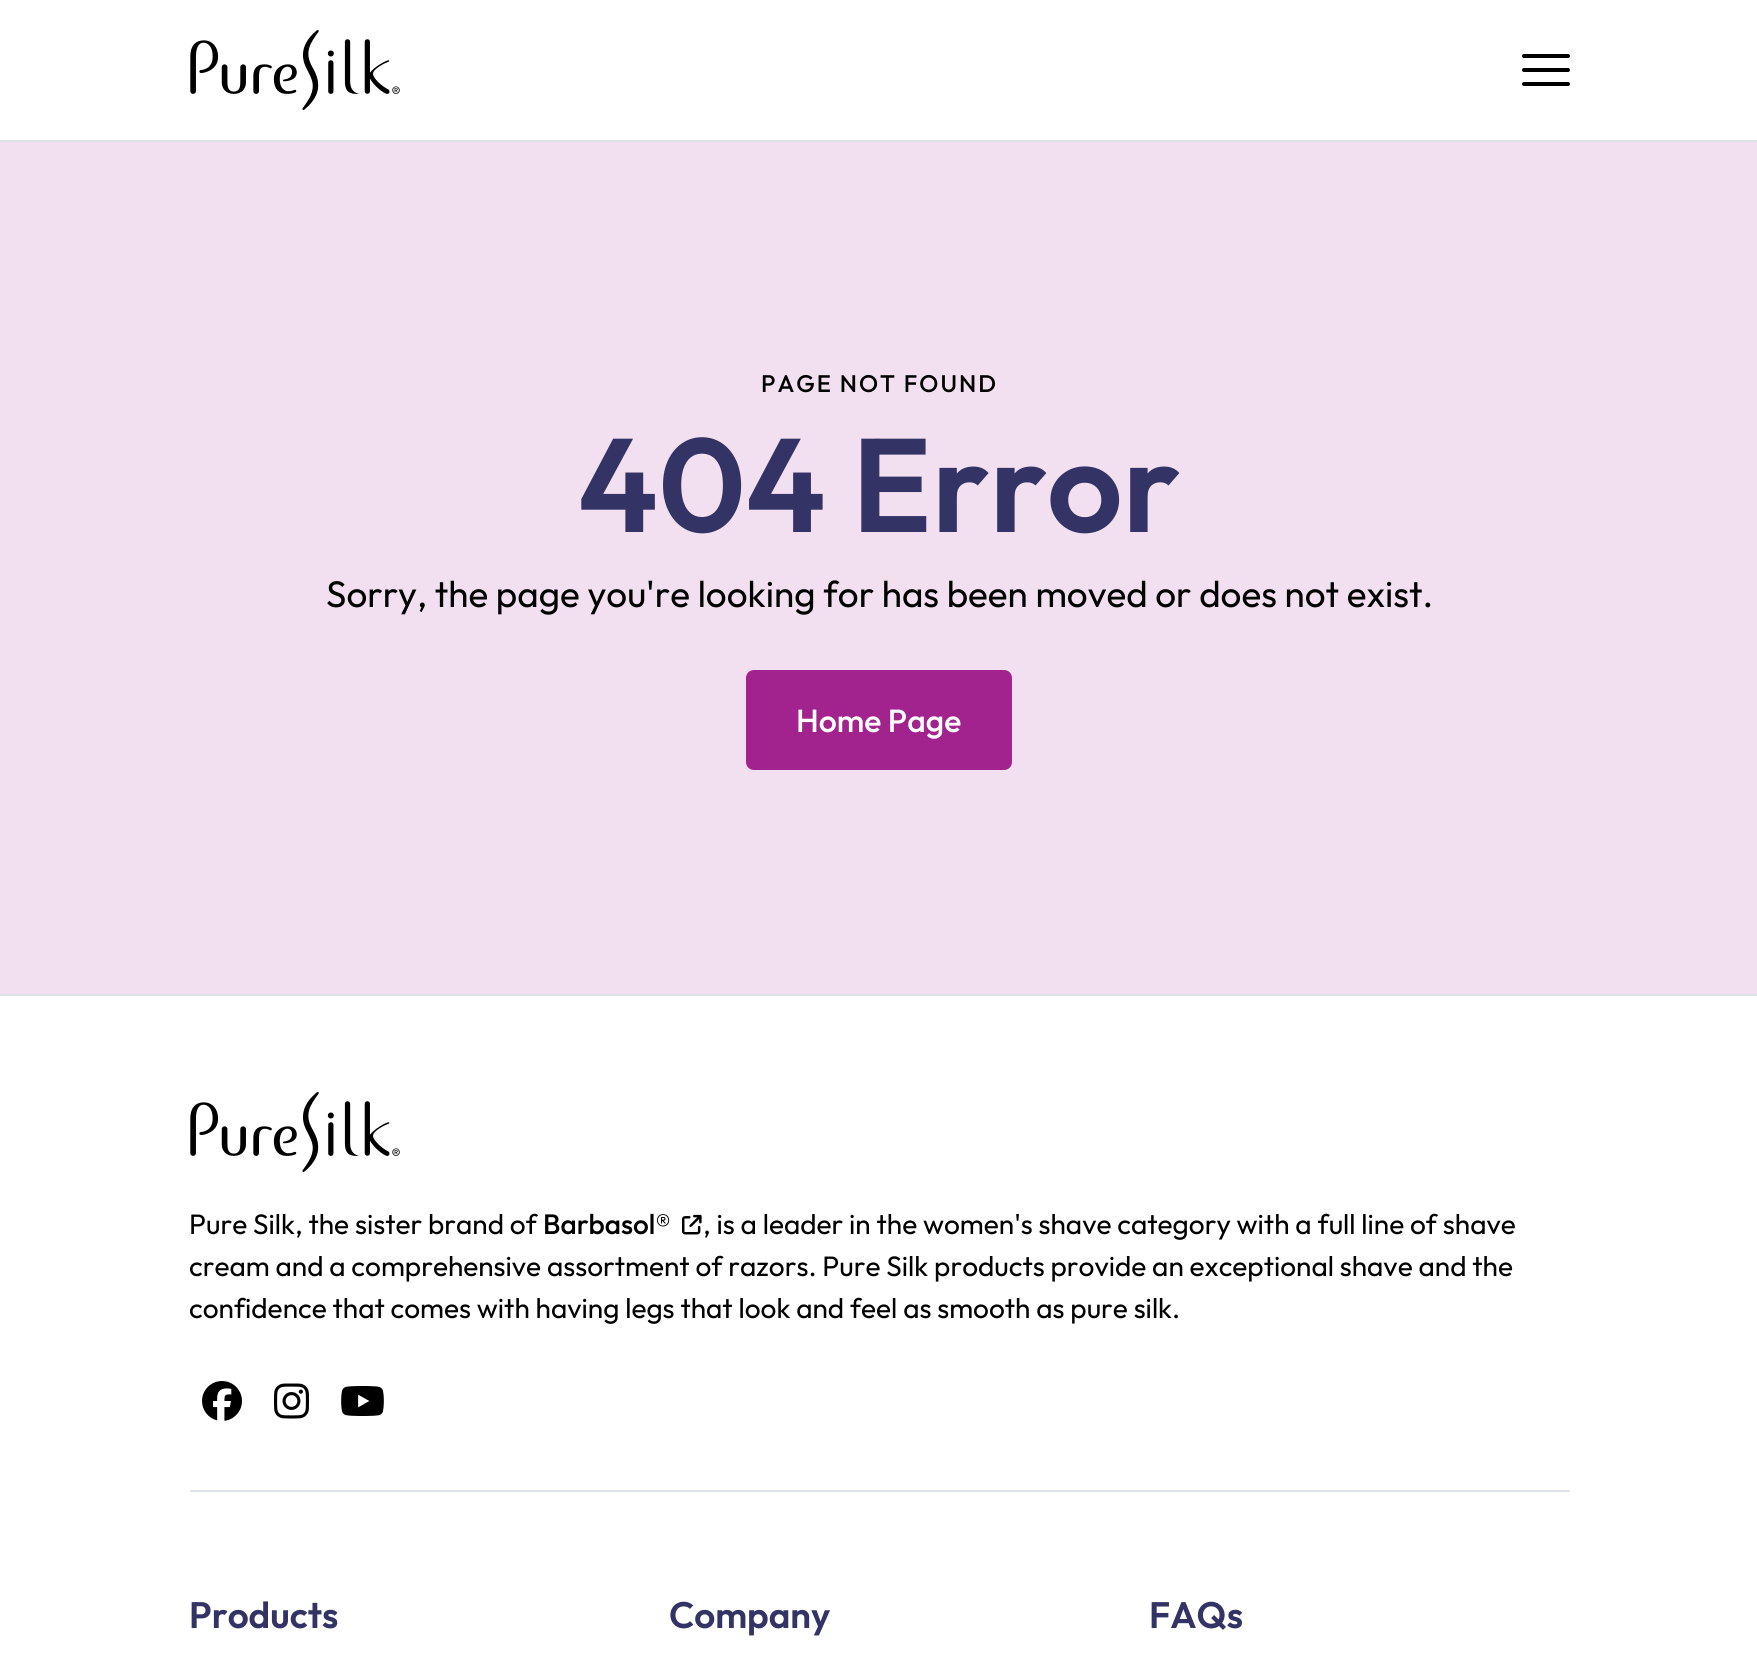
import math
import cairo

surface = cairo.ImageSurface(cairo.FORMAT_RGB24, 1757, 1676)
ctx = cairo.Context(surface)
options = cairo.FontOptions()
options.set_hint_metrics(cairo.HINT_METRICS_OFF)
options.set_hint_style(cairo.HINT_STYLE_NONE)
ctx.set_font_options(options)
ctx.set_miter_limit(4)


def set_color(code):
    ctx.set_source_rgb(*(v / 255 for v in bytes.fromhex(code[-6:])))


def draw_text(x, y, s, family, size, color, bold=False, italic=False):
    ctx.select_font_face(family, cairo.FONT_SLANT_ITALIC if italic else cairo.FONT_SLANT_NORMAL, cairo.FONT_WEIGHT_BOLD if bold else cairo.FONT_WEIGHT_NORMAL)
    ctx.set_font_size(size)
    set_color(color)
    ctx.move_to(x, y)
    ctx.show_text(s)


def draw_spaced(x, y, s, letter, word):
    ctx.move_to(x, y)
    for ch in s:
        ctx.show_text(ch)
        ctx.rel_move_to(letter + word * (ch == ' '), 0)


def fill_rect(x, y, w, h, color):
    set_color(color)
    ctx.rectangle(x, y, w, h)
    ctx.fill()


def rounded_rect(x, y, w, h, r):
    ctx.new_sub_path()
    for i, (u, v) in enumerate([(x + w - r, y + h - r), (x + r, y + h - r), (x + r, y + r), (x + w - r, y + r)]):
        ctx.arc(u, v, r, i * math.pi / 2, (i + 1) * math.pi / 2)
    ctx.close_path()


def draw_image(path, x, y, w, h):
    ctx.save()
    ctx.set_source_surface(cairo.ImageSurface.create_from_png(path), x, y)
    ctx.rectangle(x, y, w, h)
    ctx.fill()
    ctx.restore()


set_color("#ffffff")
ctx.paint()
draw_image("assets/img1.png", 190, 30, 210, 80)
set_color("#000000")
rounded_rect(1522, 54, 48, 4, 2)
ctx.fill()
rounded_rect(1522, 68, 48, 4, 2)
ctx.fill()
rounded_rect(1522, 82, 48, 4, 2)
ctx.fill()
fill_rect(0, 142, 1757, 852, "#f2dfef")
fill_rect(0, 140, 1757, 2, "#dee2e6")
ctx.select_font_face("Outfit Medium")
ctx.set_font_size(24)
set_color("#000000")
draw_spaced(761, 392, "PAGE NOT FOUND", 2, 0)
draw_text(578, 532, "404 Error", "Outfit SemiBold", 132.75, "#333366")
draw_text(326, 607, "Sorry, the page you're looking for has been moved or does not exist.", "Outfit", 36.8, "#000000")
set_color("#a3238e")
rounded_rect(747, 671, 264, 98, 7)
ctx.fill_preserve()
ctx.stroke()
draw_text(796, 732, "Home Page", "Outfit Medium", 32, "#ffffff")
fill_rect(0, 994, 1757, 2, "#dee2e6")
draw_image("assets/img1.png", 190, 1092, 210, 80)
draw_text(189, 1234, "Pure Silk, the sister brand of", "Outfit", 28, "#000000")
draw_text(543, 1234, "Barbasol®", "Outfit Medium", 28, "#000000")
draw_image("assets/img2.png", 682, 1214, 20, 21)
draw_text(703, 1234, ", is a leader in the women's shave category with a full line of shave", "Outfit", 28, "#000000")
draw_text(189, 1276, "cream and a comprehensive assortment of razors. Pure Silk products provide an exceptional shave and the", "Outfit", 28, "#000000")
draw_text(189, 1318, "confidence that comes with having legs that look and feel as smooth as pure silk.", "Outfit", 28, "#000000")
draw_image("assets/img3.png", 202, 1381, 40, 40)
draw_image("assets/img4.png", 274, 1383, 35, 36)
draw_image("assets/img5.png", 341, 1386, 43, 30)
fill_rect(190, 1490, 1380, 2, "#dee2e6")
draw_text(189, 1628, "Products", "Outfit SemiBold", 36.8, "#333366")
draw_text(669, 1628, "Company", "Outfit SemiBold", 36.8, "#333366")
draw_text(1149, 1628, "FAQs", "Outfit SemiBold", 36.8, "#333366")
surface.write_to_png("output.png")
